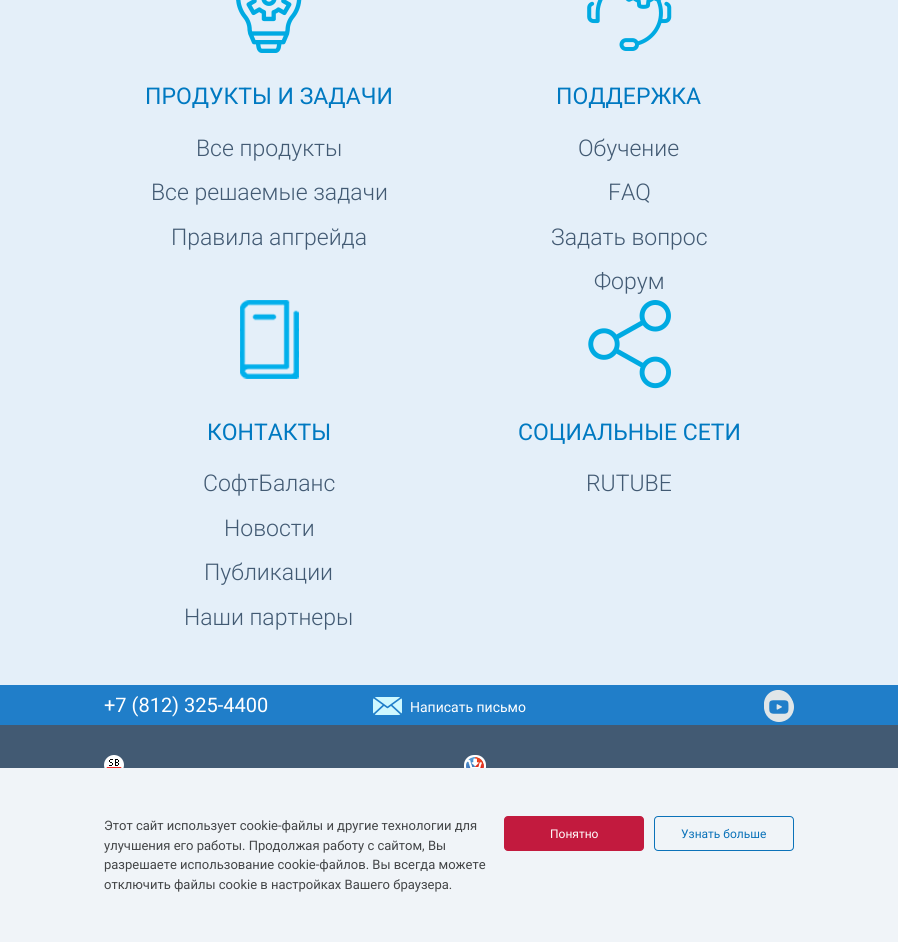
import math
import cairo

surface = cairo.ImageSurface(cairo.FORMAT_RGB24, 898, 942)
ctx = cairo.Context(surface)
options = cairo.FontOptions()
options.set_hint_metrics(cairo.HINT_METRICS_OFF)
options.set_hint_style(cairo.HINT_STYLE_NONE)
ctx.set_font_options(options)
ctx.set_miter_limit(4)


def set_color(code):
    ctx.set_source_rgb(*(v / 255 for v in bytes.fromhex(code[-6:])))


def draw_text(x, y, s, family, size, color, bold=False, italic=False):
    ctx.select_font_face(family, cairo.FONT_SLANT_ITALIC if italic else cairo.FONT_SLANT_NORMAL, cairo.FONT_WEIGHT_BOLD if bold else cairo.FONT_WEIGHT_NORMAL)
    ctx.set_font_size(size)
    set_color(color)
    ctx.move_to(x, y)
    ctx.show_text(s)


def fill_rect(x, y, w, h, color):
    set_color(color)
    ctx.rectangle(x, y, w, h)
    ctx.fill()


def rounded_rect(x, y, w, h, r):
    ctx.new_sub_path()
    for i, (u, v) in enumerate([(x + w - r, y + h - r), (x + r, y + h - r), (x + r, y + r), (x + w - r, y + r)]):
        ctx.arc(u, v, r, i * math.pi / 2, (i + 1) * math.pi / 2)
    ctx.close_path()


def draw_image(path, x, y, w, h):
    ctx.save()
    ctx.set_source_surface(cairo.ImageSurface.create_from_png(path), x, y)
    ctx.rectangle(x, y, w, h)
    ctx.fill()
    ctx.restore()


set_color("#e4eff9")
ctx.paint()
draw_image("assets/img1.png", 236, 0, 66, 53)
draw_text(145, 104, "ПРОДУКТЫ И ЗАДАЧИ", "Roboto", 23, "#0079c1")
draw_text(196, 156, "Все продукты", "Roboto Light", 23, "#425a73")
draw_text(151, 200, "Все решаемые задачи", "Roboto Light", 23, "#425a73")
draw_text(171, 245, "Правила апгрейда", "Roboto Light", 23, "#425a73")
draw_image("assets/img2.png", 587, 0, 85, 51)
draw_text(556, 104, "ПОДДЕРЖКА", "Roboto", 23, "#0079c1")
draw_text(578, 156, "Обучение", "Roboto Light", 23, "#425a73")
draw_text(608, 200, "FAQ", "Roboto Light", 23, "#425a73")
draw_text(551, 245, "Задать вопрос", "Roboto Light", 23, "#425a73")
draw_text(594, 289, "Форум", "Roboto Light", 23, "#425a73")
draw_image("assets/img3.png", 240, 300, 59, 79)
draw_text(207, 440, "КОНТАКТЫ", "Roboto", 23, "#0079c1")
draw_text(203, 491, "СофтБаланс", "Roboto Light", 23, "#425a73")
draw_text(224, 536, "Новости", "Roboto Light", 23, "#425a73")
draw_text(204, 580, "Публикации", "Roboto Light", 23, "#425a73")
draw_text(184, 625, "Наши партнеры", "Roboto Light", 23, "#425a73")
draw_image("assets/img4.png", 588, 300, 83, 89)
draw_text(518, 440, "СОЦИАЛЬНЫЕ СЕТИ", "Roboto", 23, "#0079c1")
draw_text(586, 491, "RUTUBE", "Roboto Light", 23, "#425a73")
fill_rect(0, 685, 898, 40, "#207ec9")
draw_text(104, 712, "+7 (812) 325-4400", "Roboto", 20, "#ffffff")
draw_image("assets/img5.png", 373, 697, 29, 18)
draw_text(410, 712, "Написать письмо", "Roboto", 14, "#ffffff")
draw_image("assets/img6.png", 764, 690, 29, 19)
draw_image("assets/img7.png", 764, 695, 30, 27)
fill_rect(0, 725, 898, 43, "#425a73")
set_color("#ffffff")
ctx.arc(114, 765, 9, 0, 2 * math.pi)
ctx.fill_preserve()
ctx.stroke()
draw_image("assets/img8.png", 106, 759, 16, 9)
rounded_rect(465, 756, 20, 20, 9)
ctx.fill_preserve()
ctx.stroke()
draw_image("assets/img9.png", 466, 757, 18, 11)
fill_rect(0, 768, 898, 174, "#f0f4f8")
draw_text(104, 830, "Этот сайт использует cookie-файлы и другие технологии для", "Roboto", 13, "#434547")
draw_text(104, 850, "улучшения его работы. Продолжая работу с сайтом, Вы", "Roboto", 13, "#434547")
draw_text(104, 869, "разрешаете использование cookie-файлов. Вы всегда можете", "Roboto", 13, "#434547")
draw_text(104, 889, "отключить файлы cookie в настройках Вашего браузера.", "Roboto", 13, "#434547")
set_color("#c21a3e")
rounded_rect(504.5, 816.5, 139, 34, 3.5)
ctx.fill_preserve()
ctx.set_line_width(1)
ctx.stroke()
draw_text(550, 838, "Понятно", "Roboto", 12, "#ffffff")
rounded_rect(654.5, 816.5, 139, 34, 3.5)
set_color("#0b72b9")
ctx.stroke()
draw_text(681, 838, "Узнать больше", "Roboto", 12, "#0b72b9")
surface.write_to_png("output.png")
